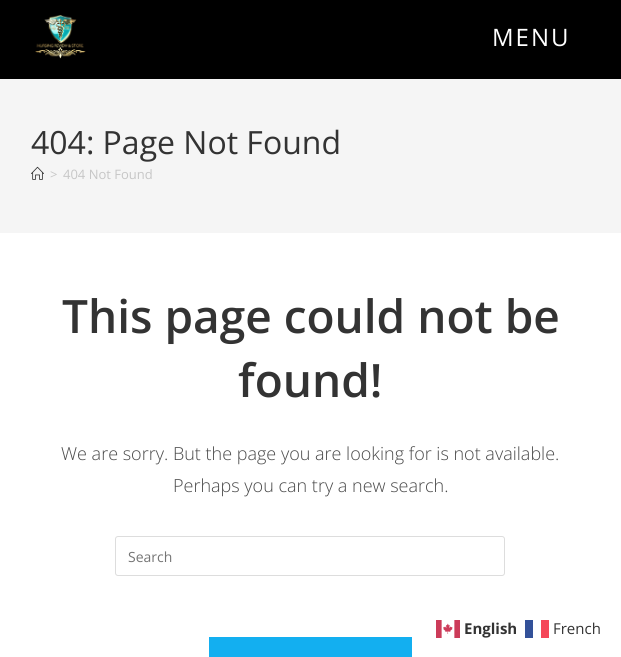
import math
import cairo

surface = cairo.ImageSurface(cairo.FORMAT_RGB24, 621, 657)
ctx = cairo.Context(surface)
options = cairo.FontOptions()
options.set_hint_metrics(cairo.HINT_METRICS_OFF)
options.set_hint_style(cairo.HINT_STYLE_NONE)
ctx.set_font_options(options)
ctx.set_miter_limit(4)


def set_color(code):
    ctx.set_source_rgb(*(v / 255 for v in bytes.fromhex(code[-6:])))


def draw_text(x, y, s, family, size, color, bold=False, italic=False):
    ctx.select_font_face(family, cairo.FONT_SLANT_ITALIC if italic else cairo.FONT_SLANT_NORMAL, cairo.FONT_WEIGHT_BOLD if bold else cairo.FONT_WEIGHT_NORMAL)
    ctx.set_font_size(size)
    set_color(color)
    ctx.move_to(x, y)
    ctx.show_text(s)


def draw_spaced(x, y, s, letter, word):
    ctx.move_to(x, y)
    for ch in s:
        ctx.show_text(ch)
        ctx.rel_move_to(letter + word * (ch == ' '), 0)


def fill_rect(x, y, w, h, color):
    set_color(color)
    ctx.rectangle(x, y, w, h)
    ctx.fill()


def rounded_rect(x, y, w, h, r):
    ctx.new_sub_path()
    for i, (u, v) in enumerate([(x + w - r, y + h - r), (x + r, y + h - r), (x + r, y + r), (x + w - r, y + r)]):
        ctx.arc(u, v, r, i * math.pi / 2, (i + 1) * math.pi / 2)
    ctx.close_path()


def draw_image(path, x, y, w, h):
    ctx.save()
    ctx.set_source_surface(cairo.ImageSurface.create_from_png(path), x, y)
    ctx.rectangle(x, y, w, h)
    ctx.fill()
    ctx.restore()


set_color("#ffffff")
ctx.paint()
fill_rect(0, 0, 621, 79, "#000000")
draw_image("assets/img1.png", 35, 14, 51, 45)
ctx.select_font_face("Open Sans")
ctx.set_font_size(24)
set_color("#ffffff")
draw_spaced(492, 46, "MENU", 2, 0)
fill_rect(0, 79, 621, 154, "#f5f5f5")
draw_text(31, 154, "404: Page Not Found", "Open Sans", 32, "#333333")
draw_image("assets/img2.png", 31, 166, 13, 14)
draw_text(50, 179, ">", "Open Sans", 13, "#c6c6c6")
draw_text(63, 179, "404 Not Found", "Open Sans", 13, "#c6c6c6")
draw_text(62, 333, "This page could not be", "Open Sans SemiBold", 46, "#333333")
draw_text(238, 397, "found!", "Open Sans SemiBold", 46, "#333333")
draw_text(61, 460, "We are sorry. But the page you are looking for is not available.", "Open Sans Light", 18, "#4a4a4a")
draw_text(173, 492, "Perhaps you can try a new search.", "Open Sans Light", 18, "#4a4a4a")
rounded_rect(115.5, 536.5, 389, 39, 2.5)
set_color("#dddddd")
ctx.set_line_width(1)
ctx.stroke()
draw_text(128, 562, "Search", "Open Sans", 14, "#757575")
fill_rect(209, 637, 203, 20, "#13aff0")
draw_image("assets/img3.png", 436, 620, 24, 18)
draw_text(464, 634, "English", "Open Sans", 15, "#333333", bold=True)
draw_text(553, 634, "French", "Open Sans", 15, "#333333")
fill_rect(525, 620, 8, 18, "#335199")
fill_rect(541, 620, 8, 18, "#f54659")
surface.write_to_png("output.png")
